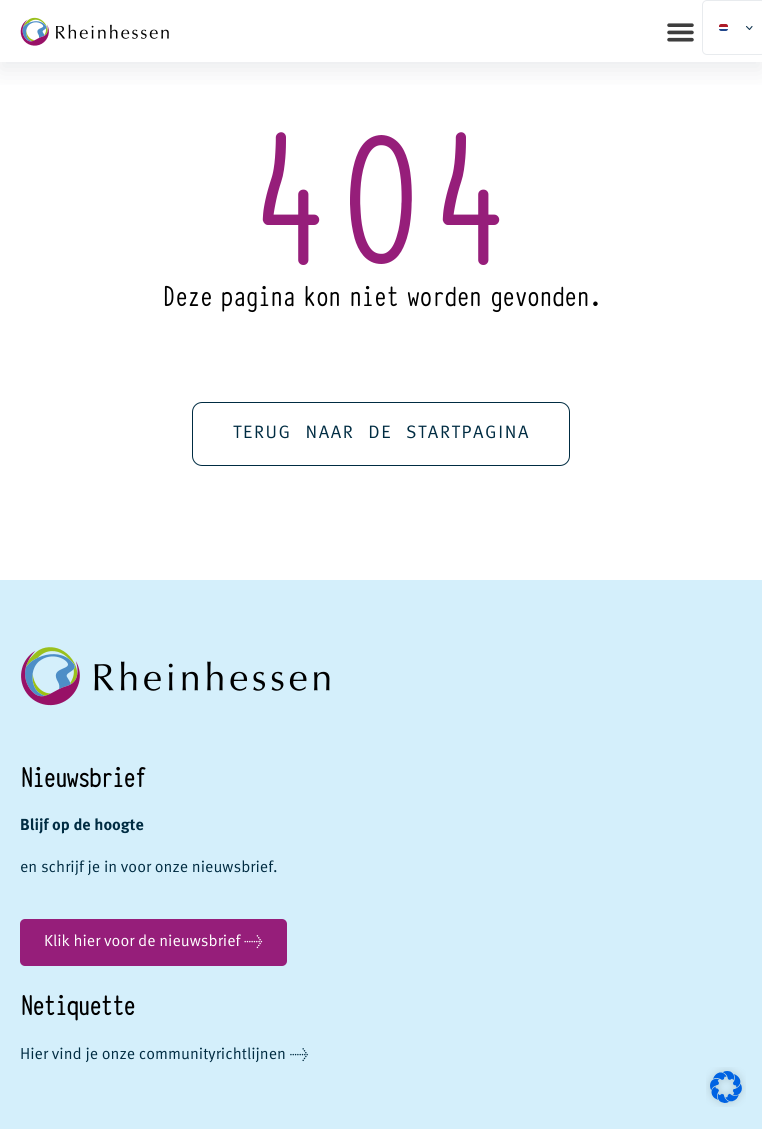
import math
import cairo

surface = cairo.ImageSurface(cairo.FORMAT_RGB24, 762, 1129)
ctx = cairo.Context(surface)
options = cairo.FontOptions()
options.set_hint_metrics(cairo.HINT_METRICS_OFF)
options.set_hint_style(cairo.HINT_STYLE_NONE)
ctx.set_font_options(options)
ctx.set_miter_limit(4)


def set_color(code):
    ctx.set_source_rgb(*(v / 255 for v in bytes.fromhex(code[-6:])))


def draw_text(x, y, s, family, size, color, bold=False, italic=False):
    ctx.select_font_face(family, cairo.FONT_SLANT_ITALIC if italic else cairo.FONT_SLANT_NORMAL, cairo.FONT_WEIGHT_BOLD if bold else cairo.FONT_WEIGHT_NORMAL)
    ctx.set_font_size(size)
    set_color(color)
    ctx.move_to(x, y)
    ctx.show_text(s)


def draw_spaced(x, y, s, letter, word):
    ctx.move_to(x, y)
    for ch in s:
        ctx.show_text(ch)
        ctx.rel_move_to(letter + word * (ch == ' '), 0)


def fill_rect(x, y, w, h, color):
    set_color(color)
    ctx.rectangle(x, y, w, h)
    ctx.fill()


def rounded_rect(x, y, w, h, r):
    ctx.new_sub_path()
    for i, (u, v) in enumerate([(x + w - r, y + h - r), (x + r, y + h - r), (x + r, y + r), (x + w - r, y + r)]):
        ctx.arc(u, v, r, i * math.pi / 2, (i + 1) * math.pi / 2)
    ctx.close_path()


def draw_shadow(x, y, w, h, r, blur, alpha):
    ctx.push_group_with_content(cairo.CONTENT_ALPHA)
    ctx.set_operator(cairo.OPERATOR_SOURCE)
    for i in range(15, -16, -2):
        e = blur * i / 6
        if min(w, h) + 2 * e > 0:
            ctx.set_source_rgba(0, 0, 0, alpha * math.erfc((i - 1) / 8.5) / 2)
            rounded_rect(x - e, y - e, w + 2 * e, h + 2 * e, max(0, min(r + e + blur * .6, min(w, h) / 2 + e)))
            ctx.fill()
    ctx.mask(ctx.pop_group())


def draw_image(path, x, y, w, h):
    ctx.save()
    ctx.set_source_surface(cairo.ImageSurface.create_from_png(path), x, y)
    ctx.rectangle(x, y, w, h)
    ctx.fill()
    ctx.restore()


set_color("#ffffff")
ctx.paint()
ctx.save()
ctx.rectangle(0, 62, 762, 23)
ctx.clip()
set_color("#959da5")
draw_shadow(0, 8, 762, 62, 0, 12, 0.2)
ctx.restore()
draw_image("assets/img1.png", 20, 17, 149, 29)
draw_image("assets/img2.png", 667, 23, 27, 19)
rounded_rect(702.5, 0.5, 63, 54, 4.5)
set_color("#e8ebee")
ctx.set_line_width(1)
ctx.stroke()
set_color("#ae1c28")
ctx.new_path()
ctx.move_to(721, 24)
ctx.line_to(726, 24)
ctx.curve_to(727, 24, 728, 25, 728, 26)
ctx.line_to(728, 27)
ctx.line_to(719, 27)
ctx.line_to(719, 26)
ctx.curve_to(719, 25, 720, 24, 721, 24)
ctx.close_path()
ctx.fill()
set_color("#21468b")
ctx.new_path()
ctx.move_to(719, 29)
ctx.line_to(728, 29)
ctx.curve_to(728, 30, 727, 31, 726, 31)
ctx.line_to(721, 31)
ctx.curve_to(720, 31, 719, 30, 719, 29)
ctx.close_path()
ctx.fill()
ctx.new_path()
ctx.move_to(746.5, 26.5)
ctx.line_to(749.5, 29.5)
ctx.line_to(752, 26.5)
set_color("#143852")
ctx.set_line_width(1.1)
ctx.set_line_cap(cairo.LINE_CAP_ROUND)
ctx.set_line_join(cairo.LINE_JOIN_ROUND)
ctx.stroke()
draw_text(246, 262, "404", "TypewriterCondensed", 200, "#961e7a")
ctx.set_font_size(32)
set_color("#000000")
draw_spaced(162, 306, "Deze pagina kon niet worden gevonden.", -2, -4)
rounded_rect(192.5, 402.5, 377, 63, 9.5)
set_color("#002c42")
ctx.set_line_width(1)
ctx.set_line_cap(cairo.LINE_CAP_BUTT)
ctx.set_line_join(cairo.LINE_JOIN_MITER)
ctx.stroke()
ctx.select_font_face("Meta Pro")
ctx.set_font_size(18)
draw_spaced(233, 438, "TERUG NAAR DE STARTPAGINA", 1.6, 8)
fill_rect(0, 580, 762, 549, "#d4effb")
draw_image("assets/img3.png", 21, 647, 309, 59)
ctx.select_font_face("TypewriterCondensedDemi")
ctx.set_font_size(32)
set_color("#000000")
draw_spaced(20, 787, "Nieuwsbrief", -3, 0)
draw_text(20, 830, "Blijf op de hoogte", "Meta Pro", 16, "#002c42", bold=True)
draw_text(20, 872, "en schrijf je in voor onze nieuwsbrief.", "Meta Pro", 16, "#002c42")
set_color("#961e7a")
rounded_rect(20, 919, 267, 47, 5)
ctx.fill()
draw_text(44, 946, "Klik hier voor de nieuwsbrief →", "Meta Pro", 16, "#ffffff")
ctx.select_font_face("TypewriterCondensedDemi")
ctx.set_font_size(32)
set_color("#000000")
draw_spaced(20, 1015, "Netiquette", -3, 0)
draw_text(20, 1059, "Hier vind je onze communityrichtlijnen →", "Meta Pro", 16, "#002c42")
draw_image("assets/img4.png", 706, 1067, 40, 40)
surface.write_to_png("output.png")
